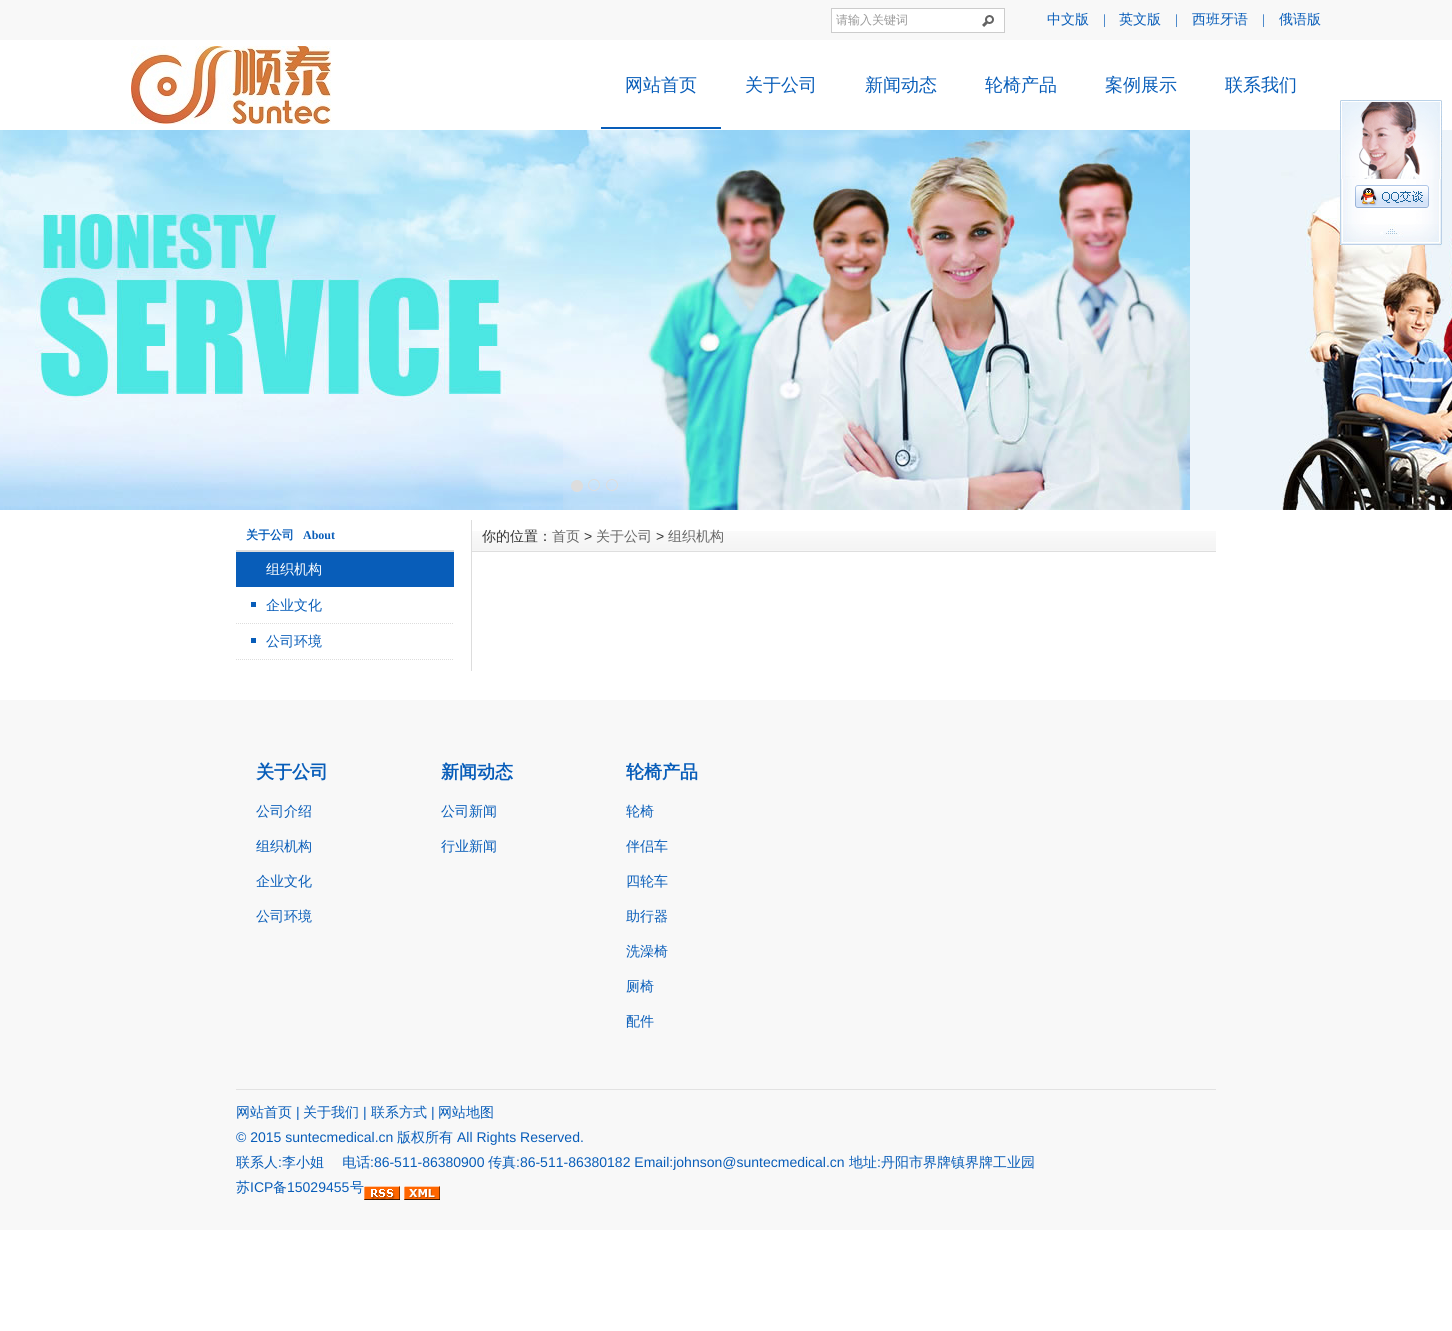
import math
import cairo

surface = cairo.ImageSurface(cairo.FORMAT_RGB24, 1452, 1331)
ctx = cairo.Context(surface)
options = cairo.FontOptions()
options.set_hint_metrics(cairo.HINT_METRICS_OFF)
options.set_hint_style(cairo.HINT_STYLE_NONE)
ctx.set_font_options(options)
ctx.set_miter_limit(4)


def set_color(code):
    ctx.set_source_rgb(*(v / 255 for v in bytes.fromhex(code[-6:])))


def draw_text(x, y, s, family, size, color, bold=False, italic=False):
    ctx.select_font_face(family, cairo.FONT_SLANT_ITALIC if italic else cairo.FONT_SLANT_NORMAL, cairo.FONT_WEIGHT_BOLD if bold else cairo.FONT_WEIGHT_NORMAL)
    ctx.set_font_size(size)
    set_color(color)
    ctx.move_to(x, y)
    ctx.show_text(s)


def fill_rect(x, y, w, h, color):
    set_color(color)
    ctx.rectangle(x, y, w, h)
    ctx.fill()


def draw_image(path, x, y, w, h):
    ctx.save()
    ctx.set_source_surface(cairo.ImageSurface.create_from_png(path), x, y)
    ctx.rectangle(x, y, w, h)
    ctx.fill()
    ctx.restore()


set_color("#ffffff")
ctx.paint()
fill_rect(0, 0, 1452, 40, "#f8f8f8")
draw_image("assets/img1.png", 831, 8, 174, 25)
draw_text(836, 24, "请输入关键词", "WenQuanYi Zen Hei Medium", 12, "#999999")
draw_text(1047, 24, "中文版", "WenQuanYi Zen Hei Medium", 14, "#085db9")
draw_text(1103, 24, "|", "Liberation Serif", 14, "#085db9")
draw_text(1119, 24, "英文版", "WenQuanYi Zen Hei Medium", 14, "#085db9")
draw_text(1175, 24, "|", "Liberation Serif", 14, "#085db9")
draw_text(1192, 24, "西班牙语", "WenQuanYi Zen Hei Medium", 14, "#085db9")
draw_text(1262, 24, "|", "Liberation Serif", 14, "#085db9")
draw_text(1279, 24, "俄语版", "WenQuanYi Zen Hei Medium", 14, "#085db9")
draw_image("assets/img2.png", 131, 46, 200, 78)
draw_text(625, 91, "网站首页", "WenQuanYi Zen Hei Medium", 18, "#085db9")
draw_text(745, 91, "关于公司", "WenQuanYi Zen Hei Medium", 18, "#085db9")
draw_text(865, 91, "新闻动态", "WenQuanYi Zen Hei Medium", 18, "#085db9")
draw_text(985, 91, "轮椅产品", "WenQuanYi Zen Hei Medium", 18, "#085db9")
draw_text(1105, 91, "案例展示", "WenQuanYi Zen Hei Medium", 18, "#085db9")
draw_text(1225, 91, "联系我们", "WenQuanYi Zen Hei Medium", 18, "#085db9")
fill_rect(601, 127, 120, 2, "#085db9")
draw_image("assets/img3.png", 0, 130, 1190, 380)
draw_image("assets/img4.png", 1190, 130, 262, 380)
set_color("#dddddd")
ctx.arc(577, 486, 6, 0, 2 * math.pi)
ctx.fill()
ctx.arc(594, 485, 5.5, 0, 2 * math.pi)
ctx.set_line_width(1)
ctx.stroke()
ctx.arc(612, 485, 5.5, 0, 2 * math.pi)
ctx.stroke()
fill_rect(236, 550, 218, 2, "#dddddd")
draw_text(246, 539, "关于公司", "WenQuanYi Zen Hei", 12, "#085db9", bold=True)
draw_text(303, 539, "About", "Liberation Serif", 12, "#085db9", bold=True)
fill_rect(236, 552, 218, 35, "#085db9")
draw_text(266, 574, "组织机构", "WenQuanYi Zen Hei Medium", 14, "#ffffff")
fill_rect(251, 602, 5, 5, "#085db9")
ctx.new_path()
ctx.move_to(236, 623.5)
ctx.line_to(454, 623.5)
set_color("#dddddd")
ctx.set_dash([1, 1])
ctx.stroke()
draw_text(266, 610, "企业文化", "WenQuanYi Zen Hei Medium", 14, "#085db9")
fill_rect(251, 638, 5, 5, "#085db9")
ctx.new_path()
ctx.move_to(236, 659.5)
ctx.line_to(454, 659.5)
set_color("#dddddd")
ctx.stroke()
draw_text(266, 646, "公司环境", "WenQuanYi Zen Hei Medium", 14, "#085db9")
fill_rect(471, 520, 1, 151, "#dddddd")
draw_image("assets/img5.png", 472, 531, 744, 21)
draw_text(482, 541, "你的位置：", "WenQuanYi Zen Hei Medium", 14, "#333333")
draw_text(552, 541, "首页", "WenQuanYi Zen Hei Medium", 14, "#666666")
draw_text(584, 541, ">", "Liberation Sans", 14, "#333333")
draw_text(596, 541, "关于公司", "WenQuanYi Zen Hei Medium", 14, "#666666")
draw_text(656, 541, ">", "Liberation Sans", 14, "#333333")
draw_text(668, 541, "组织机构", "WenQuanYi Zen Hei Medium", 14, "#666666")
draw_image("assets/img6.png", 1340, 100, 102, 79)
draw_image("assets/img7.png", 1340, 179, 102, 45)
draw_image("assets/img8.png", 1355, 185, 74, 23)
draw_image("assets/img9.png", 1340, 224, 102, 21)
fill_rect(0, 700, 1452, 530, "#f8f8f8")
draw_text(256, 778, "关于公司", "WenQuanYi Zen Hei", 18, "#085db9", bold=True)
draw_text(256, 816, "公司介绍", "WenQuanYi Zen Hei Medium", 14, "#085db9")
draw_text(256, 851, "组织机构", "WenQuanYi Zen Hei Medium", 14, "#085db9")
draw_text(256, 886, "企业文化", "WenQuanYi Zen Hei Medium", 14, "#085db9")
draw_text(256, 921, "公司环境", "WenQuanYi Zen Hei Medium", 14, "#085db9")
draw_text(441, 778, "新闻动态", "WenQuanYi Zen Hei", 18, "#085db9", bold=True)
draw_text(441, 816, "公司新闻", "WenQuanYi Zen Hei Medium", 14, "#085db9")
draw_text(441, 851, "行业新闻", "WenQuanYi Zen Hei Medium", 14, "#085db9")
draw_text(626, 778, "轮椅产品", "WenQuanYi Zen Hei", 18, "#085db9", bold=True)
draw_text(626, 816, "轮椅", "WenQuanYi Zen Hei Medium", 14, "#085db9")
draw_text(626, 851, "伴侣车", "WenQuanYi Zen Hei Medium", 14, "#085db9")
draw_text(626, 886, "四轮车", "WenQuanYi Zen Hei Medium", 14, "#085db9")
draw_text(626, 921, "助行器", "WenQuanYi Zen Hei Medium", 14, "#085db9")
draw_text(626, 956, "洗澡椅", "WenQuanYi Zen Hei Medium", 14, "#085db9")
draw_text(626, 991, "厕椅", "WenQuanYi Zen Hei Medium", 14, "#085db9")
draw_text(626, 1026, "配件", "WenQuanYi Zen Hei Medium", 14, "#085db9")
fill_rect(236, 1089, 980, 1, "#e2e2e2")
draw_text(236, 1117, "网站首页", "WenQuanYi Zen Hei Medium", 14, "#085db9")
draw_text(296, 1117, "|", "Liberation Sans", 14, "#085db9")
draw_text(303, 1117, "关于我们", "WenQuanYi Zen Hei Medium", 14, "#085db9")
draw_text(363, 1117, "|", "Liberation Sans", 14, "#085db9")
draw_text(371, 1117, "联系方式", "WenQuanYi Zen Hei Medium", 14, "#085db9")
draw_text(431, 1117, "|", "Liberation Sans", 14, "#085db9")
draw_text(438, 1117, "网站地图", "WenQuanYi Zen Hei Medium", 14, "#085db9")
draw_text(236, 1142, "© 2015 suntecmedical.cn", "Liberation Sans", 14, "#085db9")
draw_text(397, 1142, "版权所有", "WenQuanYi Zen Hei Medium", 14, "#085db9")
draw_text(457, 1142, "All Rights Reserved.", "Liberation Sans", 14, "#085db9")
draw_text(236, 1167, "联系人", "WenQuanYi Zen Hei Medium", 14, "#085db9")
draw_text(278, 1167, ":", "Liberation Sans", 14, "#085db9")
draw_text(282, 1167, "李小姐　 电话", "WenQuanYi Zen Hei Medium", 14, "#085db9")
draw_text(370, 1167, ":86-511-86380900", "Liberation Sans", 14, "#085db9")
draw_text(488, 1167, "传真", "WenQuanYi Zen Hei Medium", 14, "#085db9")
draw_text(516, 1167, ":86-511-86380182 Email:johnson@suntecmedical.cn", "Liberation Sans", 14, "#085db9")
draw_text(849, 1167, "地址", "WenQuanYi Zen Hei Medium", 14, "#085db9")
draw_text(877, 1167, ":", "Liberation Sans", 14, "#085db9")
draw_text(881, 1167, "丹阳市界牌镇界牌工业园", "WenQuanYi Zen Hei Medium", 14, "#085db9")
draw_text(236, 1192, "苏", "WenQuanYi Zen Hei Medium", 14, "#085db9")
draw_text(250, 1192, "ICP", "Liberation Sans", 14, "#085db9")
draw_text(273, 1192, "备", "WenQuanYi Zen Hei Medium", 14, "#085db9")
draw_text(287, 1192, "15029455", "Liberation Sans", 14, "#085db9")
draw_text(350, 1192, "号", "WenQuanYi Zen Hei Medium", 14, "#085db9")
draw_image("assets/img10.png", 364, 1186, 36, 14)
draw_image("assets/img11.png", 404, 1186, 36, 14)
surface.write_to_png("output.png")
